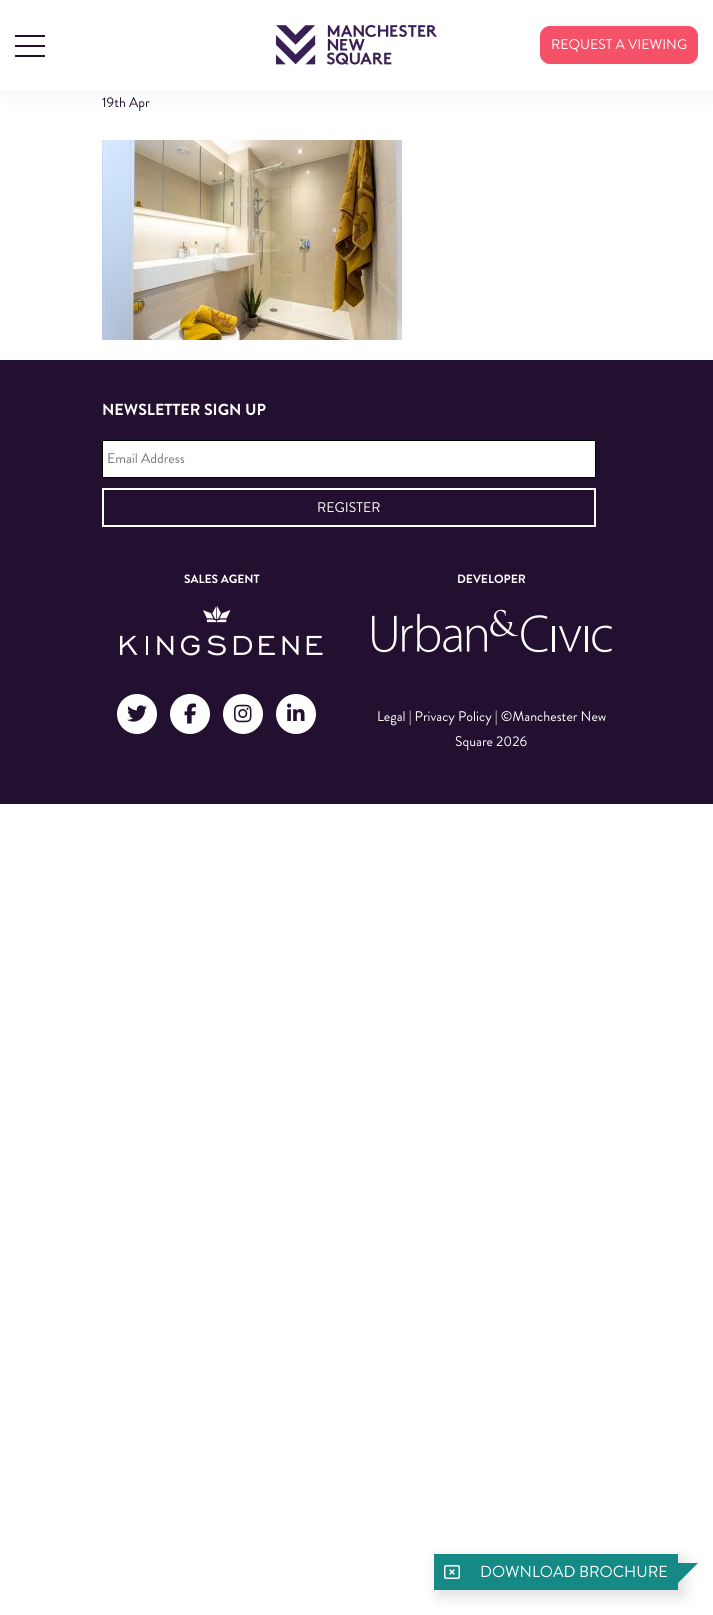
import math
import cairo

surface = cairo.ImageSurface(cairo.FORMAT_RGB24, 713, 1615)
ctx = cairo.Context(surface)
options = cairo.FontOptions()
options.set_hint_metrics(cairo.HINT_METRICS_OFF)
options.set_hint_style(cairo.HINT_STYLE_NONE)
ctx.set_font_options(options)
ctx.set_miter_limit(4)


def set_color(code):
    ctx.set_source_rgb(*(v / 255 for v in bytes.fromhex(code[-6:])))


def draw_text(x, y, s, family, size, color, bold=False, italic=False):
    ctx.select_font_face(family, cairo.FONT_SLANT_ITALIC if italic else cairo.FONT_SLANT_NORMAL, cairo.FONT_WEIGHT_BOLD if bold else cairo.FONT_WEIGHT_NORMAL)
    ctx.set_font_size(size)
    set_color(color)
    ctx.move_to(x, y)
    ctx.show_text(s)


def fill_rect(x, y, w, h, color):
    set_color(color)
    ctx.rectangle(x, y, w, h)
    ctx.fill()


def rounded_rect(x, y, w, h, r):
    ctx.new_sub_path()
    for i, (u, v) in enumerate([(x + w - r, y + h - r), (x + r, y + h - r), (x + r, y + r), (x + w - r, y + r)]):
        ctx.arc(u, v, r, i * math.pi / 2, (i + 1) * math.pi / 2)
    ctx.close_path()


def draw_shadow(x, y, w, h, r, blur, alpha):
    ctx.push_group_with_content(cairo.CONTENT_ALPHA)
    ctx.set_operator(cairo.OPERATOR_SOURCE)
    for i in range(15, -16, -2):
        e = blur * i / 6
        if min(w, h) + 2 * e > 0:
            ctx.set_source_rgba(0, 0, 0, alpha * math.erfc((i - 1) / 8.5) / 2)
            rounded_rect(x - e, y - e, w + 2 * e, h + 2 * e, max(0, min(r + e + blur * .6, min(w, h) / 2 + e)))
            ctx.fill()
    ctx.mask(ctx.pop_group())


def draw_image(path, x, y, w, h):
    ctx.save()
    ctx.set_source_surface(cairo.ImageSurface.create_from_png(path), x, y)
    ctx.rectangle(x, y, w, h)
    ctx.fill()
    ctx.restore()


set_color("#ffffff")
ctx.paint()
set_color("#969696")
draw_shadow(3, 3, 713, 90, 0, 10, 0.1)
fill_rect(0, 0, 713, 90, "#ffffff")
fill_rect(15, 35, 30, 2, "#231030")
fill_rect(15, 45, 30, 2, "#231030")
fill_rect(15, 55, 30, 2, "#231030")
draw_image("assets/img1.png", 276, 25, 161, 40)
set_color("#f55168")
rounded_rect(540.5, 26.5, 157, 37, 9.5)
ctx.fill_preserve()
ctx.set_line_width(1)
ctx.stroke()
draw_text(551, 49, "REQUEST A VIEWING", "Brandon Grotesque", 14, "#ffffff")
draw_text(102, 107, "19th Apr", "Brandon Grotesque", 14, "#231030")
draw_image("assets/img2.png", 102, 140, 300, 200)
fill_rect(0, 360, 713, 444, "#231030")
draw_text(102, 415, "NEWSLETTER SIGN UP", "Brandon Grotesque", 16, "#ffffff", bold=True)
ctx.rectangle(102.5, 440.5, 493, 37)
ctx.fill_preserve()
set_color("#000000")
ctx.stroke()
draw_text(107, 463, "Email Address", "Brandon Grotesque", 14, "#757575")
ctx.rectangle(103, 489, 492, 37)
set_color("#ffffff")
ctx.set_line_width(2)
ctx.stroke()
draw_text(317, 512, "REGISTER", "Brandon Grotesque", 14, "#ffffff")
draw_text(184, 583, "SALES AGENT", "Brandon Grotesque", 12, "#ffffff", bold=True)
draw_image("assets/img3.png", 120, 606, 203, 50)
draw_text(457, 583, "DEVELOPER", "Brandon Grotesque", 12, "#ffffff", bold=True)
draw_image("assets/img4.png", 372, 609, 240, 44)
ctx.arc(137, 714, 19, 0, 2 * math.pi)
ctx.fill_preserve()
ctx.stroke()
draw_image("assets/img5.png", 127, 705, 20, 17)
ctx.arc(190, 714, 19, 0, 2 * math.pi)
ctx.fill_preserve()
ctx.stroke()
draw_image("assets/img6.png", 184, 703, 12, 21)
ctx.arc(243, 714, 19, 0, 2 * math.pi)
ctx.fill_preserve()
ctx.stroke()
draw_image("assets/img7.png", 234, 704, 18, 19)
ctx.arc(296, 714, 19, 0, 2 * math.pi)
ctx.fill_preserve()
ctx.stroke()
draw_image("assets/img8.png", 287, 703, 18, 18)
draw_text(377, 721, "Legal | Privacy Policy | ©Manchester New", "Brandon Grotesque", 14, "#ffffff")
draw_text(455, 746, "Square 2026", "Brandon Grotesque", 14, "#ffffff")
set_color("#000000")
draw_shadow(439, 1559, 244, 36, 0, 8, 0.15)
fill_rect(434, 1554, 244, 36, "#148985")
draw_image("assets/img9.png", 444, 1565, 16, 14)
draw_text(480, 1577, "DOWNLOAD BROCHURE", "Brandon Grotesque", 16, "#ffffff")
set_color("#148985")
ctx.new_path()
ctx.move_to(678, 1563)
ctx.line_to(698, 1563)
ctx.line_to(678, 1583)
ctx.close_path()
ctx.fill()
surface.write_to_png("output.png")
